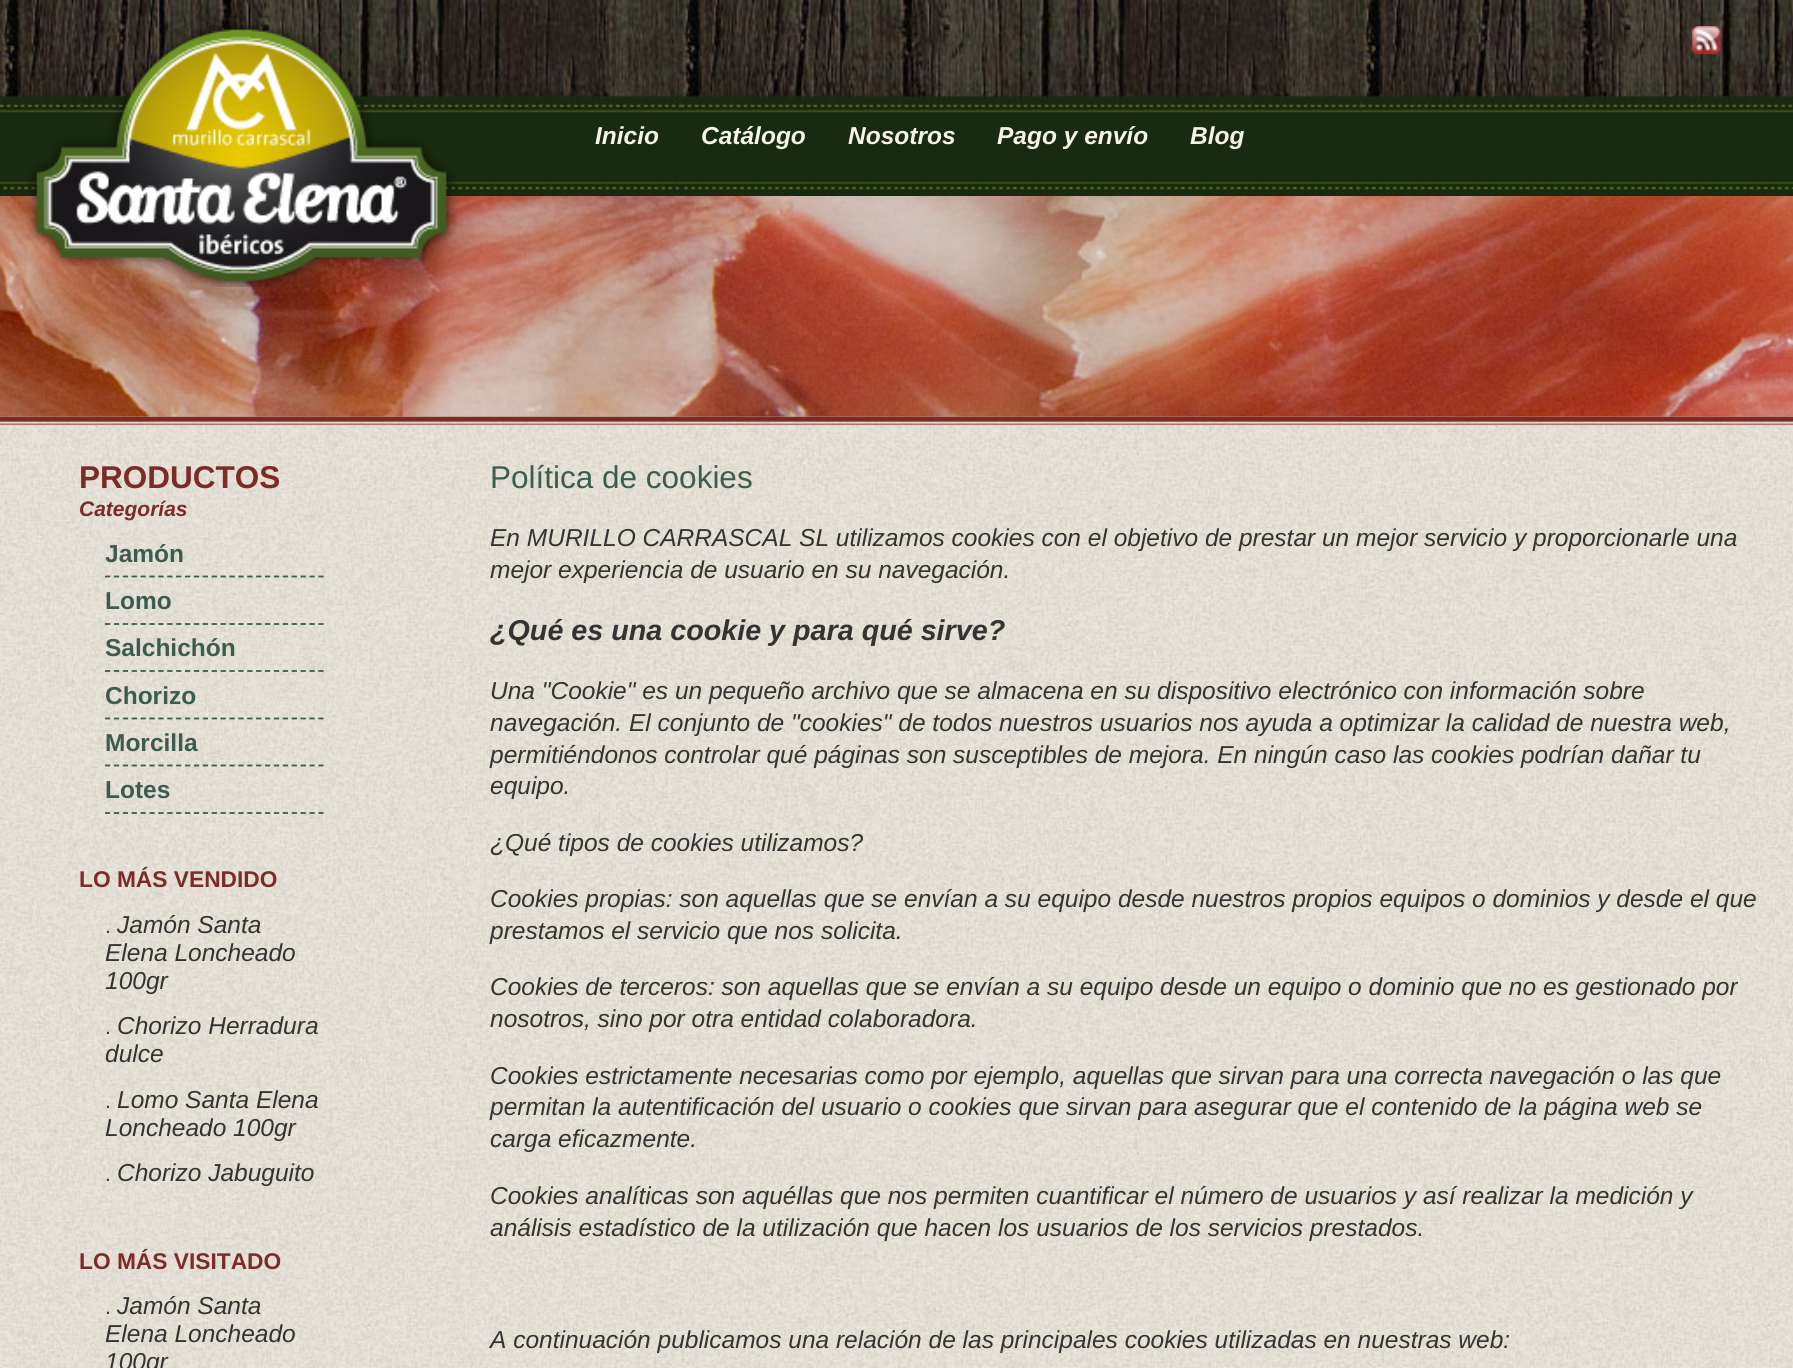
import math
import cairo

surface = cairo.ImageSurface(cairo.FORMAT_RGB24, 1793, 1368)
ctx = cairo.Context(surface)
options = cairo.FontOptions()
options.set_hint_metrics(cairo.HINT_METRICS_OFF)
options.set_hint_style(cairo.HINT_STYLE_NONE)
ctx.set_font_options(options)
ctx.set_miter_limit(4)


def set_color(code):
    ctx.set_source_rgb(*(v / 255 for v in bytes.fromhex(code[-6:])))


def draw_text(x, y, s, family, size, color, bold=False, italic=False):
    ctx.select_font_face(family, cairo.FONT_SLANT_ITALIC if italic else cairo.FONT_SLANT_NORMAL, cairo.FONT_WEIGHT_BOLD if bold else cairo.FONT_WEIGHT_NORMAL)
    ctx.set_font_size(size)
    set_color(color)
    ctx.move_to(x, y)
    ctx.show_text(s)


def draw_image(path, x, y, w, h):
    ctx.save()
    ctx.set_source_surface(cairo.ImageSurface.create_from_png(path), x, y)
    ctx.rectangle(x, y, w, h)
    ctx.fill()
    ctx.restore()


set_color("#ffffff")
ctx.paint()
draw_image("assets/img1.png", 0, 416, 1793, 952)
draw_image("assets/img2.png", 0, 0, 1793, 196)
draw_image("assets/img5.png", 0, 416, 1793, 10)
draw_image("assets/img6.png", 0, 196, 1793, 221)
draw_image("assets/img3.png", 26, 24, 431, 263)
draw_image("assets/img4.png", 1692, 26, 29, 29)
draw_text(595, 144, "Inicio", "Liberation Sans", 24.5, "#f8f5e8", bold=True, italic=True)
draw_text(701, 144, "Catálogo", "Liberation Sans", 24.5, "#f8f5e8", bold=True, italic=True)
draw_text(848, 144, "Nosotros", "Liberation Sans", 24.5, "#f8f5e8", bold=True, italic=True)
draw_text(997, 144, "Pago y envío", "Liberation Sans", 24.5, "#f8f5e8", bold=True, italic=True)
draw_text(1190, 144, "Blog", "Liberation Sans", 24.5, "#f8f5e8", bold=True, italic=True)
draw_text(79, 488, "PRODUCTOS", "Liberation Sans", 31.5, "#7d2b27", bold=True)
draw_text(79, 516, "Categorías", "Liberation Sans", 21, "#7d2b27", bold=True, italic=True)
ctx.new_path()
ctx.move_to(105, 576.5)
ctx.line_to(324, 576.5)
set_color("#3d5c51")
ctx.set_line_width(1.8)
ctx.set_dash([5.25, 3.64])
ctx.stroke()
draw_text(105, 562, "Jamón", "Liberation Sans", 24.5, "#3d5c51", bold=True)
ctx.new_path()
ctx.move_to(105, 624)
ctx.line_to(324, 624)
ctx.stroke()
draw_text(105, 609, "Lomo", "Liberation Sans", 24.5, "#3d5c51", bold=True)
ctx.new_path()
ctx.move_to(105, 671)
ctx.line_to(324, 671)
ctx.stroke()
draw_text(105, 656, "Salchichón", "Liberation Sans", 24.5, "#3d5c51", bold=True)
ctx.new_path()
ctx.move_to(105, 718.5)
ctx.line_to(324, 718.5)
ctx.stroke()
draw_text(105, 704, "Chorizo", "Liberation Sans", 24.5, "#3d5c51", bold=True)
ctx.new_path()
ctx.move_to(105, 765.5)
ctx.line_to(324, 765.5)
ctx.stroke()
draw_text(105, 751, "Morcilla", "Liberation Sans", 24.5, "#3d5c51", bold=True)
ctx.new_path()
ctx.move_to(105, 813)
ctx.line_to(324, 813)
ctx.stroke()
draw_text(105, 798, "Lotes", "Liberation Sans", 24.5, "#3d5c51", bold=True)
draw_text(79, 887, "LO MÁS VENDIDO", "Liberation Sans", 22.75, "#7d2b27", bold=True)
draw_text(105, 933, ".", "Liberation Sans", 21, "#333333")
draw_text(117, 933, "Jamón Santa", "Liberation Sans", 24.5, "#333333", italic=True)
draw_text(105, 961, "Elena Loncheado", "Liberation Sans", 24.5, "#333333", italic=True)
draw_text(105, 989, "100gr", "Liberation Sans", 24.5, "#333333", italic=True)
draw_text(105, 1034, ".", "Liberation Sans", 21, "#333333")
draw_text(117, 1034, "Chorizo Herradura", "Liberation Sans", 24.5, "#333333", italic=True)
draw_text(105, 1062, "dulce", "Liberation Sans", 24.5, "#333333", italic=True)
draw_text(105, 1108, ".", "Liberation Sans", 21, "#333333")
draw_text(117, 1108, "Lomo Santa Elena", "Liberation Sans", 24.5, "#333333", italic=True)
draw_text(105, 1136, "Loncheado 100gr", "Liberation Sans", 24.5, "#333333", italic=True)
draw_text(105, 1181, ".", "Liberation Sans", 21, "#333333")
draw_text(117, 1181, "Chorizo Jabuguito", "Liberation Sans", 24.5, "#333333", italic=True)
draw_text(79, 1269, "LO MÁS VISITADO", "Liberation Sans", 22.75, "#7d2b27", bold=True)
draw_text(105, 1314, ".", "Liberation Sans", 21, "#333333")
draw_text(117, 1314, "Jamón Santa", "Liberation Sans", 24.5, "#333333", italic=True)
draw_text(105, 1342, "Elena Loncheado", "Liberation Sans", 24.5, "#333333", italic=True)
draw_text(105, 1370, "100gr", "Liberation Sans", 24.5, "#333333", italic=True)
draw_text(490, 488, "Política de cookies", "Liberation Sans", 31.5, "#3d5c51")
draw_text(490, 546, "En MURILLO CARRASCAL SL utilizamos cookies con el objetivo de prestar un mejor servicio y proporcionarle una", "Liberation Sans", 24.5, "#333333", italic=True)
draw_text(490, 578, "mejor experiencia de usuario en su navegación.", "Liberation Sans", 24.5, "#333333", italic=True)
draw_text(490, 640, "¿Qué es una cookie y para qué sirve?", "Liberation Sans", 28.7, "#333333", bold=True, italic=True)
draw_text(490, 699, "Una \"Cookie\" es un pequeño archivo que se almacena en su dispositivo electrónico con información sobre", "Liberation Sans", 24.5, "#333333", italic=True)
draw_text(490, 731, "navegación. El conjunto de \"cookies\" de todos nuestros usuarios nos ayuda a optimizar la calidad de nuestra web,", "Liberation Sans", 24.5, "#333333", italic=True)
draw_text(490, 763, "permitiéndonos controlar qué páginas son susceptibles de mejora. En ningún caso las cookies podrían dañar tu", "Liberation Sans", 24.5, "#333333", italic=True)
draw_text(490, 794, "equipo.", "Liberation Sans", 24.5, "#333333", italic=True)
draw_text(490, 851, "¿Qué tipos de cookies utilizamos?", "Liberation Sans", 24.5, "#333333", italic=True)
draw_text(490, 907, "Cookies propias: son aquellas que se envían a su equipo desde nuestros propios equipos o dominios y desde el que", "Liberation Sans", 24.5, "#333333", italic=True)
draw_text(490, 939, "prestamos el servicio que nos solicita.", "Liberation Sans", 24.5, "#333333", italic=True)
draw_text(490, 995, "Cookies de terceros: son aquellas que se envían a su equipo desde un equipo o dominio que no es gestionado por", "Liberation Sans", 24.5, "#333333", italic=True)
draw_text(490, 1027, "nosotros, sino por otra entidad colaboradora.", "Liberation Sans", 24.5, "#333333", italic=True)
draw_text(490, 1084, "Cookies estrictamente necesarias como por ejemplo, aquellas que sirvan para una correcta navegación o las que", "Liberation Sans", 24.5, "#333333", italic=True)
draw_text(490, 1115, "permitan la autentificación del usuario o cookies que sirvan para asegurar que el contenido de la página web se", "Liberation Sans", 24.5, "#333333", italic=True)
draw_text(490, 1147, "carga eficazmente.", "Liberation Sans", 24.5, "#333333", italic=True)
draw_text(490, 1204, "Cookies analíticas son aquéllas que nos permiten cuantificar el número de usuarios y así realizar la medición y", "Liberation Sans", 24.5, "#333333", italic=True)
draw_text(490, 1236, "análisis estadístico de la utilización que hacen los usuarios de los servicios prestados.", "Liberation Sans", 24.5, "#333333", italic=True)
draw_text(490, 1348, "A continuación publicamos una relación de las principales cookies utilizadas en nuestras web:", "Liberation Sans", 24.5, "#333333", italic=True)
surface.write_to_png("output.png")
